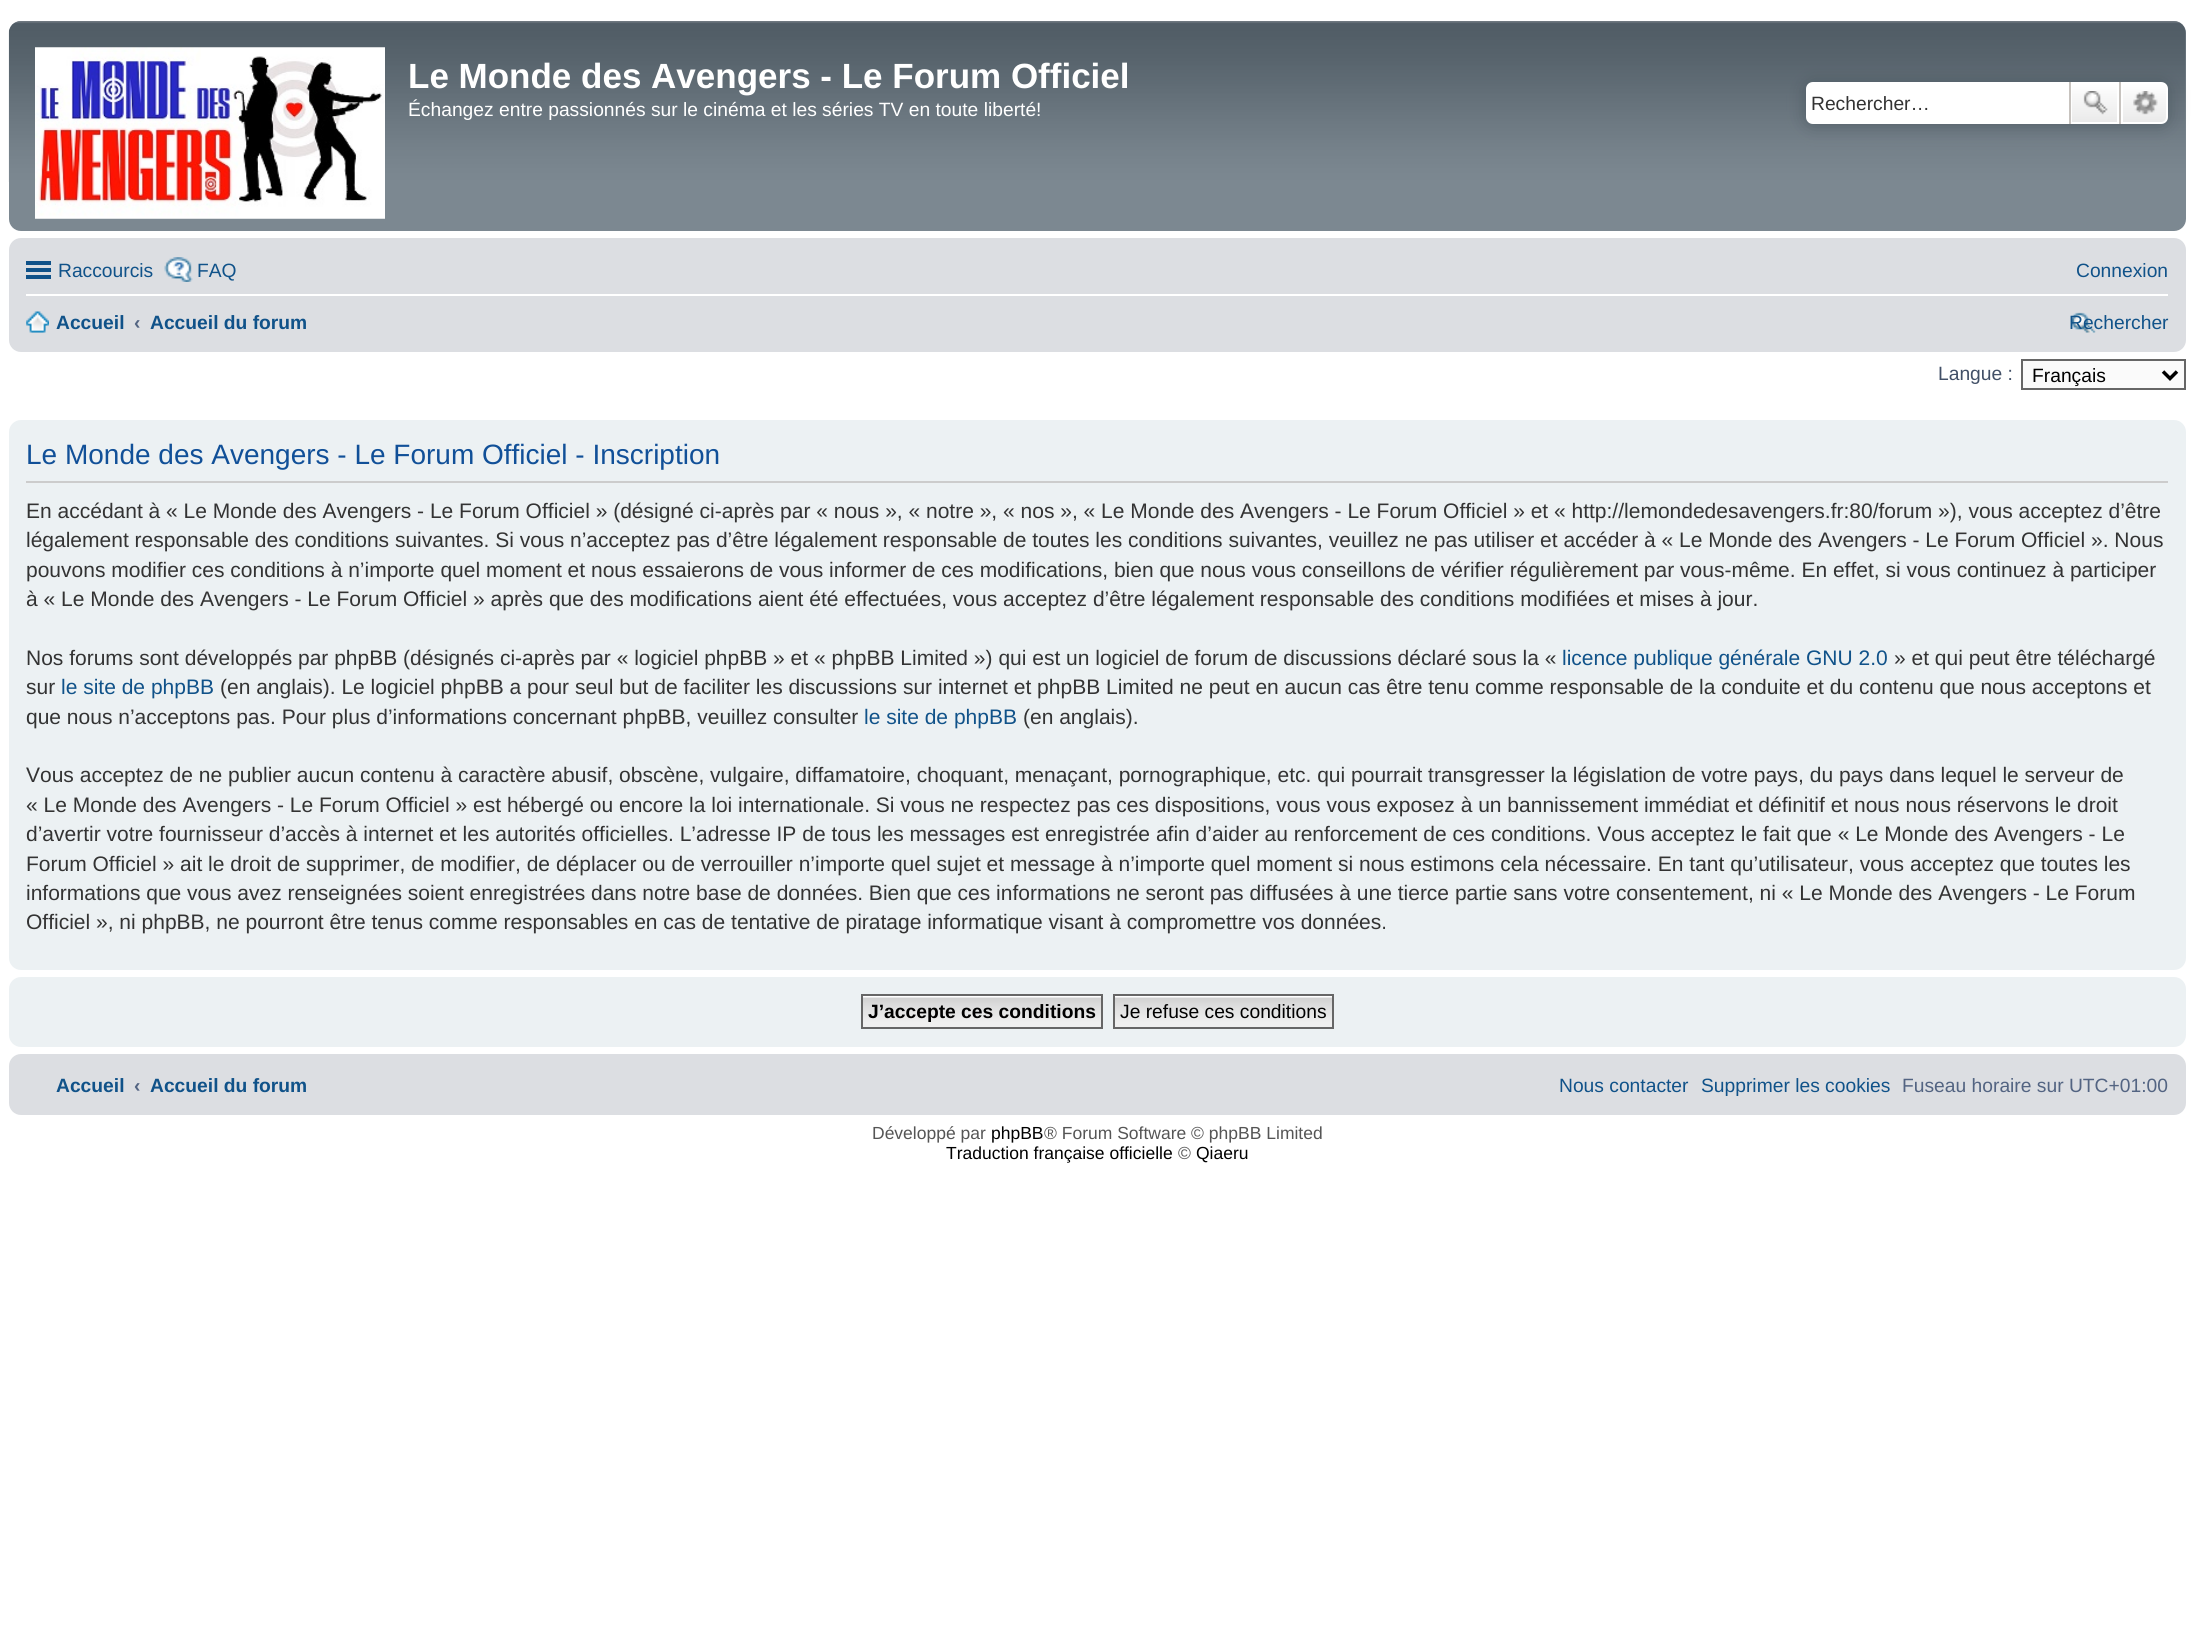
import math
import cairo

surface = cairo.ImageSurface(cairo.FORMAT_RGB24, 2194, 1632)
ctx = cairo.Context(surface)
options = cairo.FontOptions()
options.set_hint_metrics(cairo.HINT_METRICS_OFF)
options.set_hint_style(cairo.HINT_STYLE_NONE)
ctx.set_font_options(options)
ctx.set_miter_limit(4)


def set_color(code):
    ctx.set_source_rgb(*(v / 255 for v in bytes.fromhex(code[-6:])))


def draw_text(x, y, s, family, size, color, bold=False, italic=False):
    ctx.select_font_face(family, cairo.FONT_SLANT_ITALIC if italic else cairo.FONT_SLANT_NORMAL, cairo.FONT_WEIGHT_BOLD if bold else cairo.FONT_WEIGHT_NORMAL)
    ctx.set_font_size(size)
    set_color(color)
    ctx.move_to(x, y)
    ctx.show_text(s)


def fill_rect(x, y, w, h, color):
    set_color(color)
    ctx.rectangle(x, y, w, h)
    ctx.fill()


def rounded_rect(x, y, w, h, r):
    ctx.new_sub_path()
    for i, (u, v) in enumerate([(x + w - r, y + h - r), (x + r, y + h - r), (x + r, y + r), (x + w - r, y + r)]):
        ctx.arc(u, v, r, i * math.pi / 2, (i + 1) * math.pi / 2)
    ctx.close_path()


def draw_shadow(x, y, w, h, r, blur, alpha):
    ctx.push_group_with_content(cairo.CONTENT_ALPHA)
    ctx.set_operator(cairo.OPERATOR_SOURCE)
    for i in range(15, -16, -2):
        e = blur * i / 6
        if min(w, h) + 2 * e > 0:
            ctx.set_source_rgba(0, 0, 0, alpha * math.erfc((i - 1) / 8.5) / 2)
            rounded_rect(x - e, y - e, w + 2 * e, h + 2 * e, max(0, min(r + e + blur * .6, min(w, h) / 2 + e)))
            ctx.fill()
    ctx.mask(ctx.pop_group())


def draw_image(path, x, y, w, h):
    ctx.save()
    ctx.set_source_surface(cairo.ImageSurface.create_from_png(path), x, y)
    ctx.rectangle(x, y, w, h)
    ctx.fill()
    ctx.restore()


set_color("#ffffff")
ctx.paint()
set_color("#7c8891")
rounded_rect(9, 21, 2177, 210, 12)
ctx.fill()
draw_image("assets/img1.png", 8, 21, 2178, 161)
draw_image("assets/img2.png", 35, 47, 350, 172)
draw_text(408, 88, "Le Monde des Avengers - Le Forum Officiel", "Liberation Sans", 35, "#ffffff", bold=True)
draw_text(408, 116, "Échangez entre passionnés sur le cinéma et les séries TV en toute liberté!", "Liberation Sans", 19.25, "#ffffff")
set_color("#505c65")
draw_shadow(1806, 82, 362, 42, 7, 9, 1)
set_color("#ffffff")
ctx.new_path()
ctx.move_to(1813, 82)
ctx.line_to(2069, 82)
ctx.line_to(2069, 124)
ctx.line_to(1813, 124)
ctx.curve_to(1809, 124, 1806, 121, 1806, 117)
ctx.line_to(1806, 89)
ctx.curve_to(1806, 85, 1809, 82, 1813, 82)
ctx.close_path()
ctx.fill()
draw_text(1811, 110, "Rechercher…", "Liberation Sans", 19.25, "#333333")
gradient = cairo.LinearGradient(2095, 82, 2095, 124)
gradient.add_color_stop_rgba(0, 1, 1, 1, 1)
gradient.add_color_stop_rgba(1, 0.914, 0.914, 0.914, 1)
ctx.set_source(gradient)
ctx.rectangle(2072, 84, 45, 38)
ctx.fill()
ctx.rectangle(2071, 83, 47, 40)
set_color("#ffffff")
ctx.stroke()
fill_rect(2119, 82, 2, 42, "#c7c3bf")
fill_rect(2069, 82, 2, 42, "#c7c3bf")
draw_image("assets/img3.png", 2083, 91, 25, 24)
gradient = cairo.LinearGradient(2145, 82, 2145, 124)
gradient.add_color_stop_rgba(0, 1, 1, 1, 1)
gradient.add_color_stop_rgba(1, 0.914, 0.914, 0.914, 1)
ctx.set_source(gradient)
ctx.new_path()
ctx.move_to(2122, 83)
ctx.line_to(2161, 83)
ctx.curve_to(2164.5, 83, 2167, 85.5, 2167, 89)
ctx.line_to(2167, 117)
ctx.curve_to(2167, 120.5, 2164.5, 123, 2161, 123)
ctx.line_to(2122, 123)
ctx.close_path()
ctx.fill_preserve()
set_color("#ffffff")
ctx.stroke()
draw_image("assets/img4.png", 2133, 91, 25, 24)
set_color("#dcdee2")
rounded_rect(9, 238, 2177, 114, 12)
ctx.fill()
fill_rect(26, 261, 25, 4, "#105289")
fill_rect(26, 268, 25, 4, "#105289")
fill_rect(26, 275, 25, 4, "#105289")
draw_text(58, 277, "Raccourcis", "Liberation Sans", 19.25, "#105289")
draw_image("assets/img5.png", 164, 257, 29, 25)
draw_text(197, 277, "FAQ", "Liberation Sans", 19.25, "#105289")
draw_text(2076, 277, "Connexion", "Liberation Sans", 19.25, "#105289")
fill_rect(26, 294, 2142, 2, "#ffffff")
draw_image("assets/img6.png", 26, 311, 23, 22)
draw_text(56, 329, "Accueil", "Liberation Sans", 19.25, "#105289", bold=True)
draw_text(134, 329, "‹", "Liberation Sans", 19.25, "#536482", bold=True)
draw_text(150, 329, "Accueil du forum", "Liberation Sans", 19.25, "#105289", bold=True)
draw_image("assets/img7.png", 2070, 312, 26, 21)
draw_text(2069, 329, "Rechercher", "Liberation Sans", 19.25, "#105289")
draw_text(1938, 380, "Langue :", "Liberation Sans", 19.25, "#425067")
set_color("#fafafa")
ctx.rectangle(2022, 360, 163, 29)
ctx.fill_preserve()
set_color("#666666")
ctx.stroke()
ctx.new_path()
ctx.move_to(2163, 371.5)
ctx.line_to(2170, 378.5)
ctx.line_to(2177, 371.5)
set_color("#000000")
ctx.set_line_width(3.5)
ctx.stroke()
draw_text(2032, 382, "Français", "Liberation Sans", 19.25, "#000000")
set_color("#ecf1f3")
rounded_rect(9, 420, 2177, 550, 12)
ctx.fill()
fill_rect(26, 481, 2142, 2, "#cccccc")
draw_text(26, 464, "Le Monde des Avengers - Le Forum Officiel - Inscription", "Liberation Sans", 28, "#115098")
draw_text(26, 518, "En accédant à « Le Monde des Avengers - Le Forum Officiel » (désigné ci-après par « nous », « notre », « nos », « Le Monde des Avengers - Le Forum Officiel » et « http://lemondedesavengers.fr:80/forum »), vous acceptez d’être", "Liberation Sans", 21, "#333333")
draw_text(26, 547, "légalement responsable des conditions suivantes. Si vous n’acceptez pas d’être légalement responsable de toutes les conditions suivantes, veuillez ne pas utiliser et accéder à « Le Monde des Avengers - Le Forum Officiel ». Nous", "Liberation Sans", 21, "#333333")
draw_text(26, 577, "pouvons modifier ces conditions à n’importe quel moment et nous essaierons de vous informer de ces modifications, bien que nous vous conseillons de vérifier régulièrement par vous-même. En effet, si vous continuez à participer", "Liberation Sans", 21, "#333333")
draw_text(26, 606, "à « Le Monde des Avengers - Le Forum Officiel » après que des modifications aient été effectuées, vous acceptez d’être légalement responsable des conditions modifiées et mises à jour.", "Liberation Sans", 21, "#333333")
draw_text(26, 665, "Nos forums sont développés par phpBB (désignés ci-après par « logiciel phpBB » et « phpBB Limited ») qui est un logiciel de forum de discussions déclaré sous la «", "Liberation Sans", 21, "#333333")
draw_text(1562, 665, "licence publique générale GNU 2.0", "Liberation Sans", 21, "#105289")
draw_text(1894, 665, "» et qui peut être téléchargé", "Liberation Sans", 21, "#333333")
draw_text(26, 694, "sur", "Liberation Sans", 21, "#333333")
draw_text(61, 694, "le site de phpBB", "Liberation Sans", 21, "#105289")
draw_text(220, 694, "(en anglais). Le logiciel phpBB a pour seul but de faciliter les discussions sur internet et phpBB Limited ne peut en aucun cas être tenu comme responsable de la conduite et du contenu que nous acceptons et", "Liberation Sans", 21, "#333333")
draw_text(26, 724, "que nous n’acceptons pas. Pour plus d’informations concernant phpBB, veuillez consulter", "Liberation Sans", 21, "#333333")
draw_text(864, 724, "le site de phpBB", "Liberation Sans", 21, "#105289")
draw_text(1023, 724, "(en anglais).", "Liberation Sans", 21, "#333333")
draw_text(26, 782, "Vous acceptez de ne publier aucun contenu à caractère abusif, obscène, vulgaire, diffamatoire, choquant, menaçant, pornographique, etc. qui pourrait transgresser la législation de votre pays, du pays dans lequel le serveur de", "Liberation Sans", 21, "#333333")
draw_text(26, 812, "« Le Monde des Avengers - Le Forum Officiel » est hébergé ou encore la loi internationale. Si vous ne respectez pas ces dispositions, vous vous exposez à un bannissement immédiat et définitif et nous nous réservons le droit", "Liberation Sans", 21, "#333333")
draw_text(26, 841, "d’avertir votre fournisseur d’accès à internet et les autorités officielles. L’adresse IP de tous les messages est enregistrée afin d’aider au renforcement de ces conditions. Vous acceptez le fait que « Le Monde des Avengers - Le", "Liberation Sans", 21, "#333333")
draw_text(26, 871, "Forum Officiel » ait le droit de supprimer, de modifier, de déplacer ou de verrouiller n’importe quel sujet et message à n’importe quel moment si nous estimons cela nécessaire. En tant qu’utilisateur, vous acceptez que toutes les", "Liberation Sans", 21, "#333333")
draw_text(26, 900, "informations que vous avez renseignées soient enregistrées dans notre base de données. Bien que ces informations ne seront pas diffusées à une tierce partie sans votre consentement, ni « Le Monde des Avengers - Le Forum", "Liberation Sans", 21, "#333333")
draw_text(26, 929, "Officiel », ni phpBB, ne pourront être tenus comme responsables en cas de tentative de piratage informatique visant à compromettre vos données.", "Liberation Sans", 21, "#333333")
set_color("#ecf1f3")
rounded_rect(9, 977, 2177, 70, 12)
ctx.fill()
draw_image("assets/img8.png", 863, 996, 238, 31)
ctx.rectangle(862, 995, 240, 33)
set_color("#666666")
ctx.set_line_width(2)
ctx.stroke()
draw_text(868, 1018, "J’accepte ces conditions", "Liberation Sans", 19.25, "#000000", bold=True)
draw_image("assets/img9.png", 1115, 996, 217, 31)
ctx.rectangle(1114, 995, 219, 33)
set_color("#666666")
ctx.stroke()
draw_text(1120, 1018, "Je refuse ces conditions", "Liberation Sans", 19.25, "#000000")
set_color("#dcdee2")
rounded_rect(9, 1054, 2177, 61, 12)
ctx.fill()
draw_text(56, 1092, "Accueil", "Liberation Sans", 19.25, "#105289", bold=True)
draw_text(134, 1092, "‹", "Liberation Sans", 19.25, "#536482", bold=True)
draw_text(150, 1092, "Accueil du forum", "Liberation Sans", 19.25, "#105289", bold=True)
draw_text(1559, 1092, "Nous contacter", "Liberation Sans", 19.25, "#105289")
draw_text(1701, 1092, "Supprimer les cookies", "Liberation Sans", 19.25, "#105289")
draw_text(1902, 1092, "Fuseau horaire sur UTC+01:00", "Liberation Sans", 19.25, "#536482")
draw_text(872, 1139, "Développé par", "Liberation Sans", 17.5, "#555555")
draw_text(991, 1139, "phpBB", "Liberation Sans", 17.5, "#000000")
draw_text(1044, 1139, "® Forum Software © phpBB Limited", "Liberation Sans", 17.5, "#555555")
draw_text(946, 1159, "Traduction française officielle", "Liberation Sans", 17.5, "#000000")
draw_text(1178, 1159, "©", "Liberation Sans", 17.5, "#555555")
draw_text(1196, 1159, "Qiaeru", "Liberation Sans", 17.5, "#000000")
surface.write_to_png("output.png")
